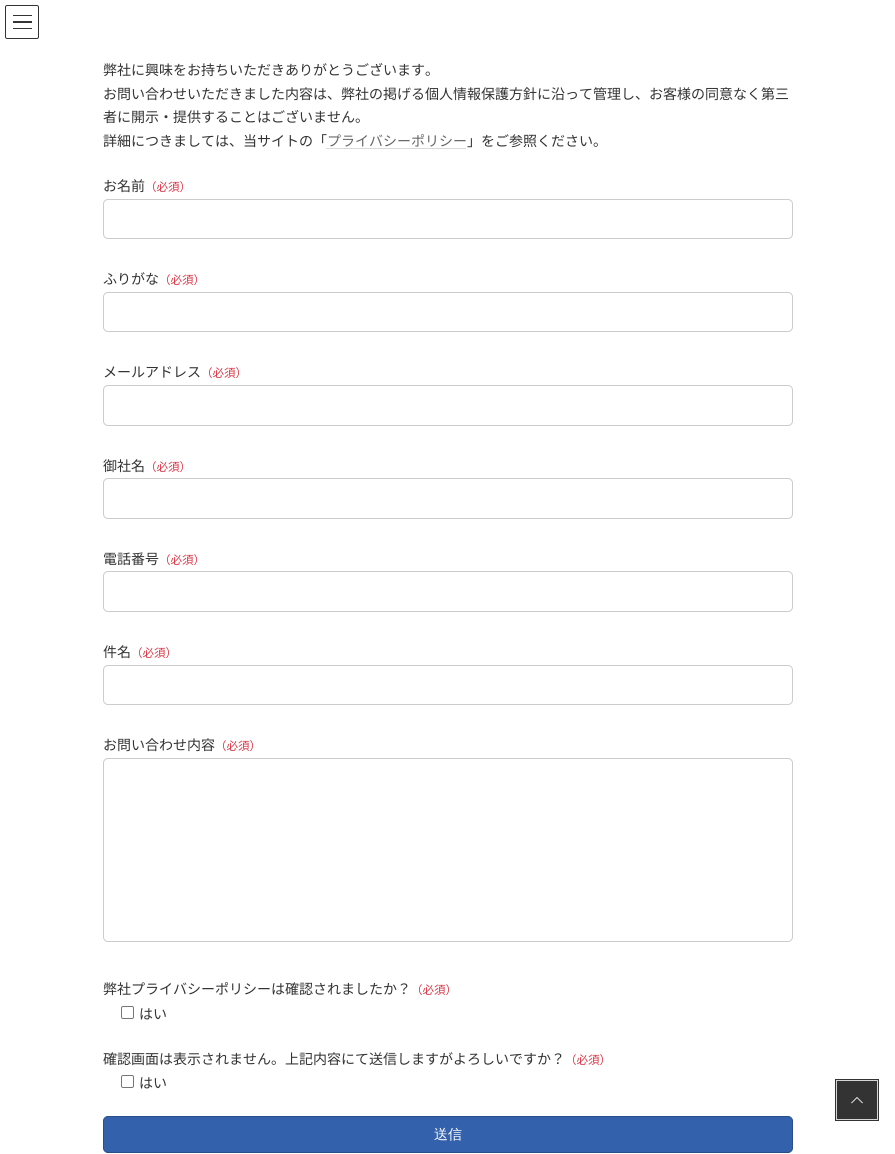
import math
import cairo

surface = cairo.ImageSurface(cairo.FORMAT_RGB24, 895, 1154)
ctx = cairo.Context(surface)
options = cairo.FontOptions()
options.set_hint_metrics(cairo.HINT_METRICS_OFF)
options.set_hint_style(cairo.HINT_STYLE_NONE)
ctx.set_font_options(options)
ctx.set_miter_limit(4)


def set_color(code):
    ctx.set_source_rgb(*(v / 255 for v in bytes.fromhex(code[-6:])))


def draw_text(x, y, s, family, size, color, bold=False, italic=False):
    ctx.select_font_face(family, cairo.FONT_SLANT_ITALIC if italic else cairo.FONT_SLANT_NORMAL, cairo.FONT_WEIGHT_BOLD if bold else cairo.FONT_WEIGHT_NORMAL)
    ctx.set_font_size(size)
    set_color(color)
    ctx.move_to(x, y)
    ctx.show_text(s)


def fill_rect(x, y, w, h, color):
    set_color(color)
    ctx.rectangle(x, y, w, h)
    ctx.fill()


def rounded_rect(x, y, w, h, r):
    ctx.new_sub_path()
    for i, (u, v) in enumerate([(x + w - r, y + h - r), (x + r, y + h - r), (x + r, y + r), (x + w - r, y + r)]):
        ctx.arc(u, v, r, i * math.pi / 2, (i + 1) * math.pi / 2)
    ctx.close_path()


def draw_image(path, x, y, w, h):
    ctx.save()
    ctx.set_source_surface(cairo.ImageSurface.create_from_png(path), x, y)
    ctx.rectangle(x, y, w, h)
    ctx.fill()
    ctx.restore()


set_color("#ffffff")
ctx.paint()
fill_rect(13, 15, 19, 1, "#333333")
fill_rect(13, 21, 19, 2, "#333333")
fill_rect(13, 28, 19, 1, "#333333")
rounded_rect(5.5, 5.5, 33, 33, 1.5)
ctx.set_line_width(1)
ctx.stroke()
draw_text(103, 75, "弊社に興味をお持ちいただきありがとうございます。", "Noto Sans JP", 14, "#333333")
draw_text(103, 99, "お問い合わせいただきました内容は、弊社の掲げる個人情報保護方針に沿って管理し、お客様の同意なく第三", "Noto Sans JP", 14, "#333333")
draw_text(103, 122, "者に開示・提供することはございません。", "Noto Sans JP", 14, "#333333")
draw_text(103, 146, "詳細につきましては、当サイトの「", "Noto Sans JP", 14, "#333333")
draw_text(327, 146, "プライバシーポリシー", "Noto Sans JP", 14, "#666666")
ctx.new_path()
ctx.move_to(326.5, 148.5)
ctx.line_to(466.5, 148.5)
set_color("#b3b3b3")
ctx.set_dash([1, 1])
ctx.stroke()
draw_text(467, 146, "」をご参照ください。", "Noto Sans JP", 14, "#333333")
draw_text(103, 191, "お名前", "Noto Sans JP", 14, "#333333")
draw_text(145, 191, "（必須）", "Noto Sans JP", 11.5, "#dc3545")
rounded_rect(103.5, 199.5, 689, 39, 4.5)
set_color("#cccccc")
ctx.set_dash([])
ctx.stroke()
draw_text(103, 284, "ふりがな", "Noto Sans JP", 14, "#333333")
draw_text(159, 284, "（必須）", "Noto Sans JP", 11.5, "#dc3545")
rounded_rect(103.5, 292.5, 689, 39, 4.5)
set_color("#cccccc")
ctx.stroke()
draw_text(103, 377, "メールアドレス", "Noto Sans JP", 14, "#333333")
draw_text(201, 377, "（必須）", "Noto Sans JP", 11.5, "#dc3545")
rounded_rect(103.5, 385.5, 689, 40, 4.5)
set_color("#cccccc")
ctx.stroke()
draw_text(103, 471, "御社名", "Noto Sans JP", 14, "#333333")
draw_text(145, 471, "（必須）", "Noto Sans JP", 11.5, "#dc3545")
rounded_rect(103.5, 478.5, 689, 40, 4.5)
set_color("#cccccc")
ctx.stroke()
draw_text(103, 564, "電話番号", "Noto Sans JP", 14, "#333333")
draw_text(159, 564, "（必須）", "Noto Sans JP", 11.5, "#dc3545")
rounded_rect(103.5, 571.5, 689, 40, 4.5)
set_color("#cccccc")
ctx.stroke()
draw_text(103, 657, "件名", "Noto Sans JP", 14, "#333333")
draw_text(131, 657, "（必須）", "Noto Sans JP", 11.5, "#dc3545")
rounded_rect(103.5, 665.5, 689, 39, 4.5)
set_color("#cccccc")
ctx.stroke()
draw_text(103, 750, "お問い合わせ内容", "Noto Sans JP", 14, "#333333")
draw_text(215, 750, "（必須）", "Noto Sans JP", 11.5, "#dc3545")
rounded_rect(103.5, 758.5, 689, 183, 4.5)
set_color("#cccccc")
ctx.stroke()
draw_text(103, 994, "弊社プライバシーポリシーは確認されましたか？", "Noto Sans JP", 14, "#333333")
draw_text(411, 994, "（必須）", "Noto Sans JP", 11.5, "#dc3545")
rounded_rect(121.5, 1006.5, 12, 12, 1.5)
set_color("#767676")
ctx.stroke()
draw_text(139, 1019, "はい", "Noto Sans JP", 14, "#333333")
draw_text(103, 1064, "確認画面は表示されません。上記内容にて送信しますがよろしいですか？", "Noto Sans JP", 14, "#333333")
draw_text(565, 1064, "（必須）", "Noto Sans JP", 11.5, "#dc3545")
rounded_rect(121.5, 1075.5, 12, 12, 1.5)
set_color("#767676")
ctx.stroke()
draw_text(139, 1088, "はい", "Noto Sans JP", 14, "#333333")
set_color("#3461ac")
rounded_rect(103.5, 1116.5, 689, 36, 4.5)
ctx.fill_preserve()
set_color("#2a4e8a")
ctx.stroke()
draw_text(434, 1139, "送信", "WenQuanYi Zen Hei Medium", 14, "#ffffff")
ctx.rectangle(836, 1080, 42, 40)
set_color("#333333")
ctx.set_line_width(2)
ctx.stroke()
ctx.rectangle(836.5, 1080.5, 41, 39)
set_color("#d6d6d6")
ctx.set_line_width(1)
ctx.stroke()
fill_rect(837, 1081, 40, 38, "#333333")
draw_image("assets/img1.png", 851, 1097, 12, 7)
surface.write_to_png("output.png")
